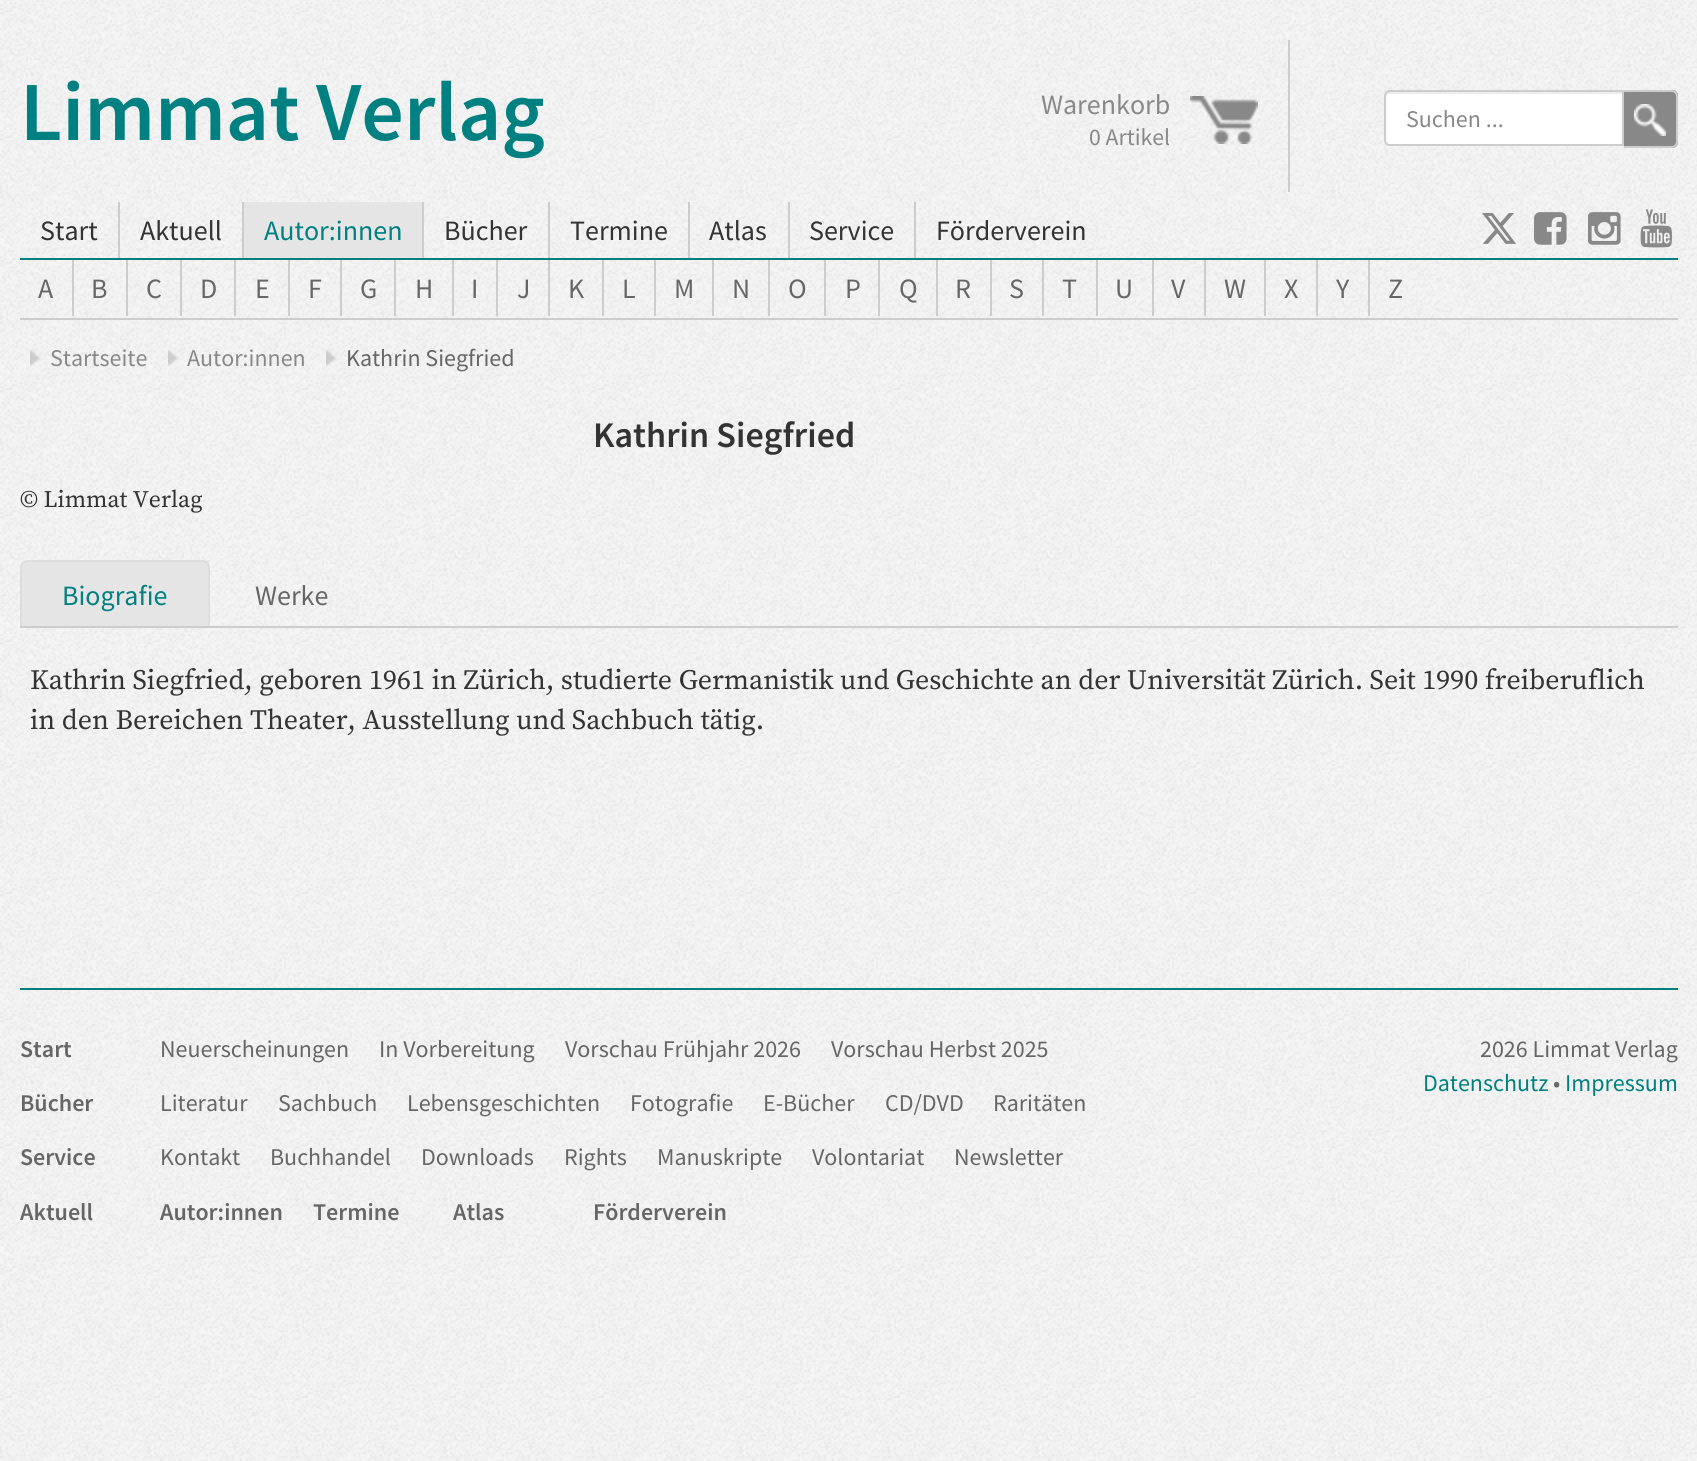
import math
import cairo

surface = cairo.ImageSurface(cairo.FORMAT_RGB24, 1697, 1461)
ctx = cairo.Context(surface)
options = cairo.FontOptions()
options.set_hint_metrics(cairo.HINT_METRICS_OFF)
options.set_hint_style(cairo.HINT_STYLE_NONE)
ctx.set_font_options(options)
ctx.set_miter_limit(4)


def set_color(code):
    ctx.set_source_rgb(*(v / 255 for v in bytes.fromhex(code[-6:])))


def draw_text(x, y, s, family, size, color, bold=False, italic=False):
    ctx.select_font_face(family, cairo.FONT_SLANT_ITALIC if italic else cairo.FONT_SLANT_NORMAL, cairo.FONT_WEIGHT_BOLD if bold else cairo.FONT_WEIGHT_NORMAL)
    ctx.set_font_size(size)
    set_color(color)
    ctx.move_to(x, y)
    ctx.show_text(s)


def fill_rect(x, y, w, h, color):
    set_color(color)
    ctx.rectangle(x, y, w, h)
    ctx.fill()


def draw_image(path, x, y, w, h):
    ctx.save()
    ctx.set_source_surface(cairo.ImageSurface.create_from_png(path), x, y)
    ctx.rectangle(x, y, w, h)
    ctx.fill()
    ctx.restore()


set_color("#f5f5f5")
ctx.paint()
draw_image("assets/img1.png", 0, 0, 1697, 1461)
draw_text(20, 140, "Limmat Verlag", "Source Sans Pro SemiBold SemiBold", 84, "#008080")
fill_rect(1288, 40, 2, 152, "#cccccc")
draw_text(1041, 114, "Warenkorb", "Source Sans Pro", 28, "#888888")
draw_text(1089, 145, "0 Artikel", "Source Sans Pro", 23.75, "#888888")
draw_image("assets/img2.png", 1190, 96, 68, 48)
set_color("#ffffff")
ctx.new_path()
ctx.move_to(1390, 90)
ctx.line_to(1624, 90)
ctx.line_to(1624, 146)
ctx.line_to(1390, 146)
ctx.curve_to(1386.5, 146, 1384, 143.5, 1384, 140)
ctx.line_to(1384, 96)
ctx.curve_to(1384, 92.5, 1386.5, 90, 1390, 90)
ctx.close_path()
ctx.fill()
set_color("#ececec")
ctx.new_path()
ctx.move_to(1390, 94)
ctx.line_to(1622, 94)
ctx.line_to(1622, 92)
ctx.line_to(1390, 92)
ctx.curve_to(1386, 92, 1386, 95, 1386, 98)
ctx.curve_to(1386, 96, 1388, 94, 1390, 94)
ctx.close_path()
ctx.fill()
ctx.new_path()
ctx.move_to(1390, 91)
ctx.line_to(1623, 91)
ctx.line_to(1623, 145)
ctx.line_to(1390, 145)
ctx.curve_to(1387, 145, 1385, 143, 1385, 140)
ctx.line_to(1385, 96)
ctx.curve_to(1385, 93, 1387, 91, 1390, 91)
ctx.close_path()
set_color("#cccccc")
ctx.stroke()
draw_text(1406, 127, "Suchen ...", "Source Sans Pro", 24, "#888888")
ctx.new_path()
ctx.move_to(1624, 90)
ctx.line_to(1672, 90)
ctx.curve_to(1675.5, 90, 1678, 92.5, 1678, 96)
ctx.line_to(1678, 142)
ctx.curve_to(1678, 145.5, 1675.5, 148, 1672, 148)
ctx.line_to(1624, 148)
ctx.close_path()
ctx.fill()
set_color("#cccccc")
ctx.set_fill_rule(cairo.FILL_RULE_EVEN_ODD)
ctx.new_path()
ctx.move_to(1624, 90)
ctx.line_to(1672, 90)
ctx.curve_to(1675, 90, 1678, 93, 1678, 96)
ctx.line_to(1678, 142)
ctx.curve_to(1678, 145, 1675, 148, 1672, 148)
ctx.line_to(1624, 148)
ctx.close_path()
ctx.move_to(1624, 92)
ctx.line_to(1672, 92)
ctx.curve_to(1674, 92, 1676, 94, 1676, 96)
ctx.line_to(1676, 142)
ctx.curve_to(1676, 144, 1674, 146, 1672, 146)
ctx.line_to(1624, 146)
ctx.close_path()
ctx.fill()
draw_image("assets/img3.png", 1634, 104, 32, 32)
fill_rect(20, 258, 1658, 2, "#008080")
fill_rect(118, 202, 2, 56, "#cccccc")
draw_text(40, 240, "Start", "Source Sans Pro", 28, "#333333")
fill_rect(242, 202, 2, 56, "#cccccc")
draw_text(140, 240, "Aktuell", "Source Sans Pro", 28, "#333333")
fill_rect(422, 202, 2, 56, "#cccccc")
fill_rect(244, 202, 178, 56, "#e5e5e5")
draw_text(264, 240, "Autor:innen", "Source Sans Pro", 28, "#008080")
fill_rect(548, 202, 2, 56, "#cccccc")
draw_text(444, 240, "Bücher", "Source Sans Pro", 28, "#333333")
fill_rect(688, 202, 2, 56, "#cccccc")
draw_text(570, 240, "Termine", "Source Sans Pro", 28, "#333333")
fill_rect(788, 202, 2, 56, "#cccccc")
draw_text(709, 240, "Atlas", "Source Sans Pro", 28, "#333333")
fill_rect(914, 202, 2, 56, "#cccccc")
draw_text(809, 240, "Service", "Source Sans Pro", 28, "#333333")
draw_text(936, 240, "Förderverein", "Source Sans Pro", 28, "#333333")
draw_image("assets/img4.png", 1482, 213, 34, 31)
draw_image("assets/img5.png", 1534, 212, 33, 33)
draw_image("assets/img6.png", 1588, 212, 33, 33)
draw_image("assets/img7.png", 1640, 209, 32, 39)
fill_rect(20, 318, 1658, 2, "#cccccc")
fill_rect(72, 260, 2, 56, "#cccccc")
draw_text(38, 298, "A", "Source Sans Pro", 28, "#666666")
fill_rect(126, 260, 2, 56, "#cccccc")
draw_text(91, 298, "B", "Source Sans Pro", 28, "#666666")
fill_rect(180, 260, 2, 56, "#cccccc")
draw_text(146, 298, "C", "Source Sans Pro", 28, "#666666")
fill_rect(234, 260, 2, 56, "#cccccc")
draw_text(200, 298, "D", "Source Sans Pro", 28, "#666666")
fill_rect(288, 260, 2, 56, "#cccccc")
draw_text(255, 298, "E", "Source Sans Pro", 28, "#666666")
fill_rect(340, 260, 2, 56, "#cccccc")
draw_text(308, 298, "F", "Source Sans Pro", 28, "#666666")
fill_rect(394, 260, 2, 56, "#cccccc")
draw_text(360, 298, "G", "Source Sans Pro", 28, "#666666")
fill_rect(452, 260, 2, 56, "#cccccc")
draw_text(415, 298, "H", "Source Sans Pro", 28, "#666666")
fill_rect(496, 260, 2, 56, "#cccccc")
draw_text(471, 298, "I", "Source Sans Pro", 28, "#666666")
fill_rect(548, 260, 2, 56, "#cccccc")
draw_text(517, 298, "J", "Source Sans Pro", 28, "#666666")
fill_rect(602, 260, 2, 56, "#cccccc")
draw_text(568, 298, "K", "Source Sans Pro", 28, "#666666")
fill_rect(654, 260, 2, 56, "#cccccc")
draw_text(622, 298, "L", "Source Sans Pro", 28, "#666666")
fill_rect(712, 260, 2, 56, "#cccccc")
draw_text(674, 298, "M", "Source Sans Pro", 28, "#666666")
fill_rect(768, 260, 2, 56, "#cccccc")
draw_text(732, 298, "N", "Source Sans Pro", 28, "#666666")
fill_rect(824, 260, 2, 56, "#cccccc")
draw_text(788, 298, "O", "Source Sans Pro", 28, "#666666")
fill_rect(878, 260, 2, 56, "#cccccc")
draw_text(845, 298, "P", "Source Sans Pro", 28, "#666666")
fill_rect(936, 260, 2, 56, "#cccccc")
draw_text(899, 298, "Q", "Source Sans Pro", 28, "#666666")
fill_rect(990, 260, 2, 56, "#cccccc")
draw_text(955, 298, "R", "Source Sans Pro", 28, "#666666")
fill_rect(1042, 260, 2, 56, "#cccccc")
draw_text(1009, 298, "S", "Source Sans Pro", 28, "#666666")
fill_rect(1096, 260, 2, 56, "#cccccc")
draw_text(1062, 298, "T", "Source Sans Pro", 28, "#666666")
fill_rect(1152, 260, 2, 56, "#cccccc")
draw_text(1115, 298, "U", "Source Sans Pro", 28, "#666666")
fill_rect(1204, 260, 2, 56, "#cccccc")
draw_text(1171, 298, "V", "Source Sans Pro", 28, "#666666")
fill_rect(1264, 260, 2, 56, "#cccccc")
draw_text(1224, 298, "W", "Source Sans Pro", 28, "#666666")
fill_rect(1316, 260, 2, 56, "#cccccc")
draw_text(1284, 298, "X", "Source Sans Pro", 28, "#666666")
fill_rect(1368, 260, 2, 56, "#cccccc")
draw_text(1336, 298, "Y", "Source Sans Pro", 28, "#666666")
draw_text(1388, 298, "Z", "Source Sans Pro", 28, "#666666")
draw_image("assets/img8.png", 30, 350, 10, 16)
draw_text(50, 366, "Startseite", "Source Sans Pro", 24, "#888888")
draw_image("assets/img9.png", 168, 350, 10, 16)
draw_text(187, 366, "Autor:innen", "Source Sans Pro", 24, "#888888")
draw_image("assets/img8.png", 326, 350, 10, 16)
draw_text(346, 366, "Kathrin Siegfried", "Source Sans Pro", 24, "#666666")
draw_text(593, 447, "Kathrin Siegfried", "Source Sans Pro SemiBold SemiBold", 36, "#333333")
draw_text(20, 507, "© Limmat Verlag", "Source Serif Pro", 23.75, "#333333")
fill_rect(20, 626, 1658, 2, "#cccccc")
set_color("#e5e5e5")
ctx.new_path()
ctx.move_to(28, 560)
ctx.line_to(202, 560)
ctx.curve_to(206.5, 560, 210, 563.5, 210, 568)
ctx.line_to(210, 626)
ctx.line_to(20, 626)
ctx.line_to(20, 568)
ctx.curve_to(20, 563.5, 23.5, 560, 28, 560)
ctx.close_path()
ctx.fill()
set_color("#dddddd")
ctx.set_fill_rule(cairo.FILL_RULE_WINDING)
ctx.new_path()
ctx.move_to(28, 560)
ctx.curve_to(26, 560, 24, 561, 22, 562)
ctx.line_to(24, 564)
ctx.curve_to(25, 563, 26, 562, 28, 562)
ctx.line_to(202, 562)
ctx.curve_to(204, 562, 205, 563, 206, 564)
ctx.line_to(208, 562)
ctx.curve_to(206, 561, 204, 560, 202, 560)
ctx.close_path()
ctx.fill()
ctx.save()
ctx.rectangle(20, 560, 1658, 66)
ctx.clip()
ctx.new_path()
ctx.move_to(210, 628)
ctx.line_to(210, 568)
ctx.curve_to(210, 566, 209, 564, 208, 562)
ctx.line_to(206, 564)
ctx.curve_to(207, 565, 208, 566, 208, 568)
ctx.line_to(208, 626)
ctx.close_path()
ctx.fill()
ctx.new_path()
ctx.move_to(20, 628)
ctx.line_to(22, 626)
ctx.line_to(22, 568)
ctx.curve_to(22, 566, 23, 565, 24, 564)
ctx.line_to(22, 562)
ctx.curve_to(21, 564, 20, 566, 20, 568)
ctx.close_path()
ctx.fill()
ctx.restore()
draw_text(62, 605, "Biografie", "Source Sans Pro", 28, "#008080")
draw_text(255, 605, "Werke", "Source Sans Pro", 28, "#666666")
draw_text(30, 689, "Kathrin Siegfried, geboren 1961 in Zürich, studierte Germanistik und Geschichte an der Universität Zürich. Seit 1990 freiberuflich", "Source Serif Pro", 28, "#333333")
draw_text(30, 729, "in den Bereichen Theater, Ausstellung und Sachbuch tätig.", "Source Serif Pro", 28, "#333333")
fill_rect(20, 988, 1658, 2, "#008080")
draw_text(20, 1057, "Start", "Source Sans Pro SemiBold SemiBold", 24, "#666666")
draw_text(160, 1057, "Neuerscheinungen", "Source Sans Pro", 24, "#666666")
draw_text(379, 1057, "In Vorbereitung", "Source Sans Pro", 24, "#666666")
draw_text(565, 1057, "Vorschau Frühjahr 2026", "Source Sans Pro", 24, "#666666")
draw_text(831, 1057, "Vorschau Herbst 2025", "Source Sans Pro", 24, "#666666")
draw_text(20, 1111, "Bücher", "Source Sans Pro SemiBold SemiBold", 24, "#666666")
draw_text(160, 1111, "Literatur", "Source Sans Pro", 24, "#666666")
draw_text(278, 1111, "Sachbuch", "Source Sans Pro", 24, "#666666")
draw_text(407, 1111, "Lebensgeschichten", "Source Sans Pro", 24, "#666666")
draw_text(630, 1111, "Fotografie", "Source Sans Pro", 24, "#666666")
draw_text(763, 1111, "E-Bücher", "Source Sans Pro", 24, "#666666")
draw_text(885, 1111, "CD/DVD", "Source Sans Pro", 24, "#666666")
draw_text(993, 1111, "Raritäten", "Source Sans Pro", 24, "#666666")
draw_text(20, 1165, "Service", "Source Sans Pro SemiBold SemiBold", 24, "#666666")
draw_text(160, 1165, "Kontakt", "Source Sans Pro", 24, "#666666")
draw_text(270, 1165, "Buchhandel", "Source Sans Pro", 24, "#666666")
draw_text(421, 1165, "Downloads", "Source Sans Pro", 24, "#666666")
draw_text(564, 1165, "Rights", "Source Sans Pro", 24, "#666666")
draw_text(657, 1165, "Manuskripte", "Source Sans Pro", 24, "#666666")
draw_text(812, 1165, "Volontariat", "Source Sans Pro", 24, "#666666")
draw_text(954, 1165, "Newsletter", "Source Sans Pro", 24, "#666666")
draw_text(20, 1220, "Aktuell", "Source Sans Pro SemiBold SemiBold", 24, "#666666")
draw_text(160, 1220, "Autor:innen", "Source Sans Pro SemiBold SemiBold", 24, "#666666")
draw_text(313, 1220, "Termine", "Source Sans Pro SemiBold SemiBold", 24, "#666666")
draw_text(453, 1220, "Atlas", "Source Sans Pro SemiBold SemiBold", 24, "#666666")
draw_text(593, 1220, "Förderverein", "Source Sans Pro SemiBold SemiBold", 24, "#666666")
draw_text(1480, 1057, "2026 Limmat Verlag", "Source Sans Pro", 24, "#666666")
draw_text(1423, 1091, "Datenschutz", "Source Sans Pro", 24, "#008080")
draw_text(1553, 1091, "•", "Source Sans Pro", 24, "#666666")
draw_text(1565, 1091, "Impressum", "Source Sans Pro", 24, "#008080")
surface.write_to_png("output.png")
